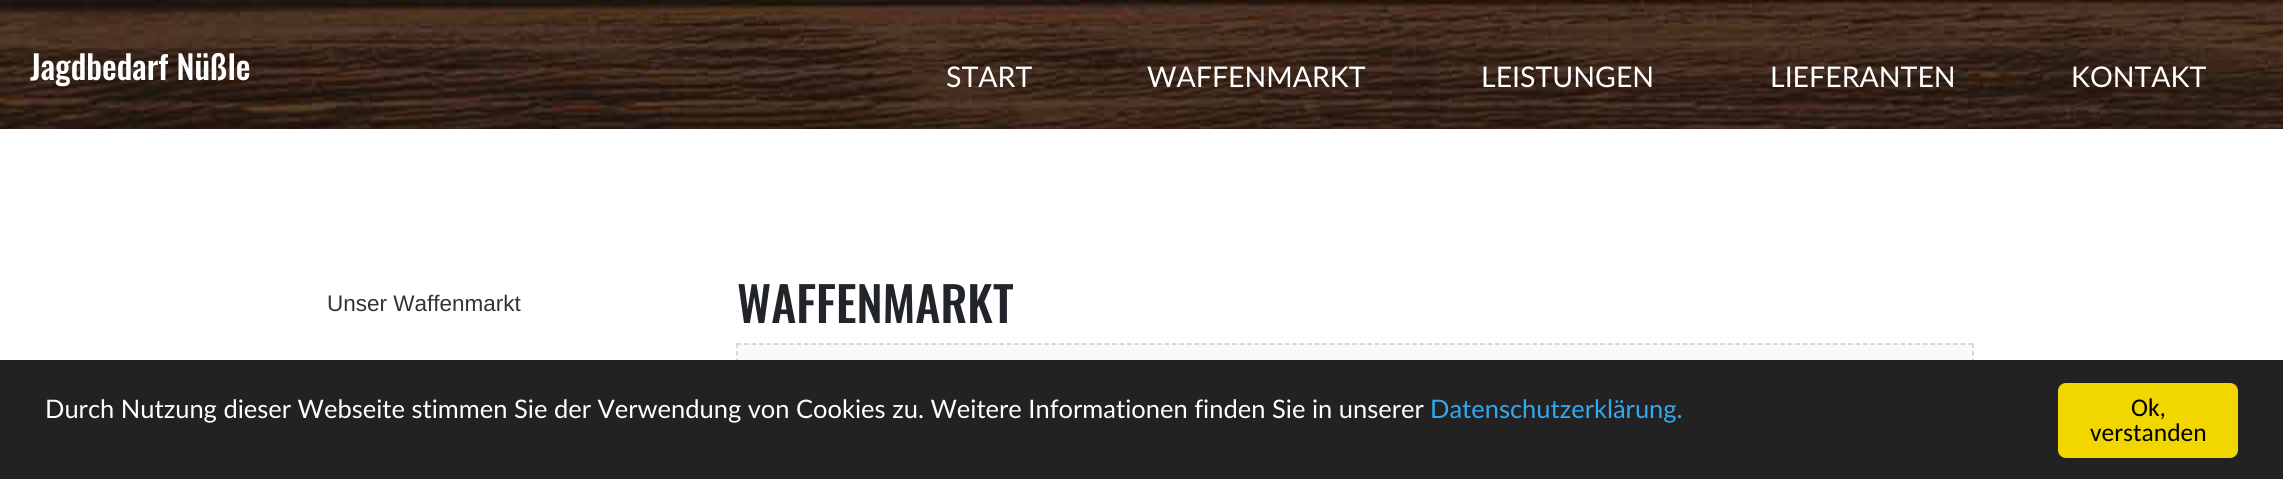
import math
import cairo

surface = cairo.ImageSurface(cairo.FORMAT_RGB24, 2283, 479)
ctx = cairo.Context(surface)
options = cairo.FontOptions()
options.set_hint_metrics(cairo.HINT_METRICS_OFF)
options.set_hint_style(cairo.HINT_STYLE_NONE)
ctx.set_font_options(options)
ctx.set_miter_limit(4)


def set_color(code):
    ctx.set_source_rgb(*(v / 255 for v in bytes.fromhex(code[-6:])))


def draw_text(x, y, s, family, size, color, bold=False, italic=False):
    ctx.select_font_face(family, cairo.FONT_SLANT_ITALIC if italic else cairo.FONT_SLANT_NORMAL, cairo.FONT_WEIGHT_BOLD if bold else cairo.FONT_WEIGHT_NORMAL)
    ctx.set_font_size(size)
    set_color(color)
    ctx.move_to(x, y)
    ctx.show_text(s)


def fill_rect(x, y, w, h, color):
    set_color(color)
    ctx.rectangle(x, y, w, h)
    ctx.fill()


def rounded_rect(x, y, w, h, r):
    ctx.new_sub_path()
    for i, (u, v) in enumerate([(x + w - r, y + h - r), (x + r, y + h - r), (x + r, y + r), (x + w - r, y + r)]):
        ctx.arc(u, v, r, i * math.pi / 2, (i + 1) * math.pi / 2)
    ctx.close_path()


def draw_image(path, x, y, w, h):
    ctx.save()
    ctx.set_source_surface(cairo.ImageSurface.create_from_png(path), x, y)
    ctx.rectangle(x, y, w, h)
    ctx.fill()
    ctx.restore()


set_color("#ffffff")
ctx.paint()
draw_image("assets/img1.png", 0, 0, 2283, 129)
draw_text(30, 80, "Jagdbedarf Nüßle", "Oswald Medium", 33, "#ffffff")
draw_text(946, 87, "START", "Lato", 28.5, "#ffffff")
draw_text(1147, 87, "WAFFENMARKT", "Lato", 28.5, "#ffffff")
draw_text(1481, 87, "LEISTUNGEN", "Lato", 28.5, "#ffffff")
draw_text(1770, 87, "LIEFERANTEN", "Lato", 28.5, "#ffffff")
draw_text(2071, 87, "KONTAKT", "Lato", 28.5, "#ffffff")
draw_text(327, 311, "Unser Waffenmarkt", "Liberation Sans", 22.5, "#333333")
draw_text(737, 323, "WAFFENMARKT", "Oswald Medium", 48, "#212529")
fill_rect(737, 344, 1237, 16, "#fafafa")
ctx.new_path()
ctx.move_to(736.5, 344)
ctx.line_to(1974, 344)
set_color("#cccccc")
ctx.set_line_width(1.5)
ctx.set_dash([4.5, 3.01])
ctx.stroke()
ctx.new_path()
ctx.move_to(1973, 343.5)
ctx.line_to(1973, 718.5)
ctx.set_dash([4.5, 3.06])
ctx.stroke()
ctx.new_path()
ctx.move_to(737, 343.5)
ctx.line_to(737, 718.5)
ctx.stroke()
fill_rect(0, 360, 2283, 119, "#222222")
draw_text(45, 418, "Durch Nutzung dieser Webseite stimmen Sie der Verwendung von Cookies zu. Weitere Informationen finden Sie in unserer", "Lato", 25.5, "#ffffff")
draw_text(1430, 418, "Datenschutzerklärung.", "Lato", 25.5, "#31a8f0")
set_color("#f1d600")
rounded_rect(2058, 383, 180, 75, 8)
ctx.fill()
draw_text(2131, 416, "Ok,", "Carlito", 25.5, "#000000")
draw_text(2090, 441, "verstanden", "Carlito", 25.5, "#000000")
surface.write_to_png("output.png")
